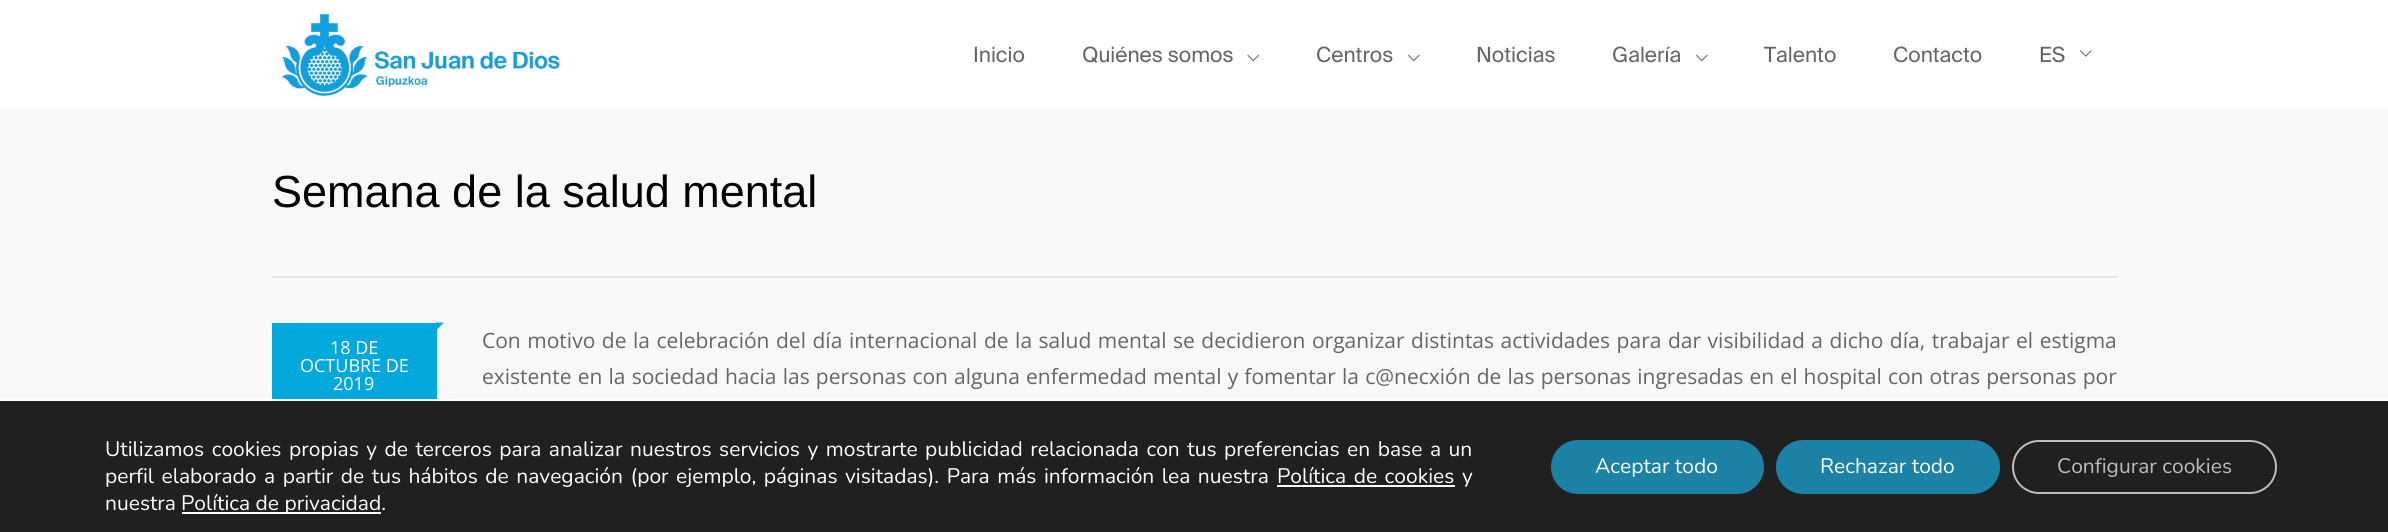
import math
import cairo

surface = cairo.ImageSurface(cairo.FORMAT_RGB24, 2388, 532)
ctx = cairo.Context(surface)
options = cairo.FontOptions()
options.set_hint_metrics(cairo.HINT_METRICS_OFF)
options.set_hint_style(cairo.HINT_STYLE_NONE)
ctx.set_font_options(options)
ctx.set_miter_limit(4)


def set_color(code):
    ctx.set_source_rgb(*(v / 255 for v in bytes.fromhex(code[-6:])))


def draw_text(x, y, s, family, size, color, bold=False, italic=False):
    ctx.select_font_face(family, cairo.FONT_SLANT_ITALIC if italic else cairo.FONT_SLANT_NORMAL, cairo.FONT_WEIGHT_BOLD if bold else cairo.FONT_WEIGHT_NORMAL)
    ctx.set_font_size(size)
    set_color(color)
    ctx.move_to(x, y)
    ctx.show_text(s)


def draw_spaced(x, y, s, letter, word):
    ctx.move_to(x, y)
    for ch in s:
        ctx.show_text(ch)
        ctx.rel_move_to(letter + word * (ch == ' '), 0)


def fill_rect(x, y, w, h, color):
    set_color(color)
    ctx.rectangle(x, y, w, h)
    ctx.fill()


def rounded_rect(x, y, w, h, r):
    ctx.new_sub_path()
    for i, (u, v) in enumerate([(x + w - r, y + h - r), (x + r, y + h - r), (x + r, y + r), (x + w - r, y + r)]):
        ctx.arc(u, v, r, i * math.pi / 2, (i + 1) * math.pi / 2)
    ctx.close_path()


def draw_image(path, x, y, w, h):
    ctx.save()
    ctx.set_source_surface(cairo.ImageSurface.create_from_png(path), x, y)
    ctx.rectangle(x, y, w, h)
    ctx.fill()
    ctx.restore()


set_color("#f8f8f8")
ctx.paint()
fill_rect(0, 0, 2388, 108, "#ffffff")
draw_image("assets/img1.png", 278, 13, 283, 84)
draw_text(973, 62, "Inicio", "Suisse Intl", 21, "#666666")
draw_text(1082, 62, "Quiénes somos", "Suisse Intl", 21, "#666666")
draw_image("assets/img2.png", 1247, 54, 13, 8)
draw_text(1316, 62, "Centros", "Suisse Intl", 21, "#666666")
draw_image("assets/img3.png", 1407, 54, 13, 8)
draw_text(1476, 62, "Noticias", "Suisse Intl", 21, "#666666")
draw_text(1612, 62, "Galería", "Suisse Intl", 21, "#666666")
draw_image("assets/img3.png", 1695, 54, 13, 8)
draw_text(1764, 62, "Talento", "Suisse Intl", 21, "#666666")
draw_text(1893, 62, "Contacto", "Suisse Intl", 21, "#666666")
draw_text(2039, 62, "ES", "Suisse Intl", 21, "#666666")
draw_image("assets/img4.png", 2079, 50, 13, 7)
fill_rect(272, 276, 1845, 2, "#e5e5e5")
draw_text(272, 207, "Semana de la salud mental", "Liberation Sans", 45, "#000000")
fill_rect(272, 323, 165, 76, "#00a8dc")
ctx.new_path()
ctx.move_to(436.5, 322.5)
ctx.line_to(444, 322.5)
ctx.line_to(436.5, 330)
ctx.close_path()
ctx.fill()
draw_text(330, 354, "18 DE", "Open Sans", 18, "#ffffff")
draw_text(300, 372, "OCTUBRE DE", "Open Sans", 18, "#ffffff")
draw_text(333, 390, "2019", "Open Sans", 18, "#ffffff")
ctx.set_font_size(21)
set_color("#666666")
draw_spaced(482, 348, "Con motivo de la celebración del día internacional de la salud mental se decidieron organizar distintas actividades para dar visibilidad a dicho día, trabajar el estigma", 0, 1.1)
draw_spaced(482, 384, "existente en la sociedad hacia las personas con alguna enfermedad mental y fomentar la c@necxión de las personas ingresadas en el hospital con otras personas por", 0, 0.7)
fill_rect(0, 401, 2388, 131, "#202020")
fill_rect(0, 399, 2388, 2, "#ffffff")
ctx.select_font_face("Nunito")
draw_spaced(105, 456, "Utilizamos cookies propias y de terceros para analizar nuestros servicios y mostrarte publicidad relacionada con tus preferencias en base a un", 0, 2.1)
draw_spaced(105, 483, "perfil elaborado a partir de tus hábitos de navegación (por ejemplo, páginas visitadas). Para más información lea nuestra", 0, 2.1)
draw_spaced(1277, 483, "Política de cookies", 0, 2.1)
fill_rect(1277, 485, 178, 2, "#ffffff")
draw_text(1462, 483, "y", "Nunito", 21, "#ffffff")
draw_text(105, 510, "nuestra", "Nunito", 21, "#ffffff")
fill_rect(182, 512, 199, 2, "#ffffff")
draw_text(181, 510, "Política de privacidad.", "Nunito", 21, "#ffffff")
set_color("#1b81a5")
rounded_rect(1551, 440, 213, 54, 27)
ctx.fill()
draw_text(1595, 473, "Aceptar todo", "Nunito", 21, "#ffffff")
set_color("#1b81a5")
rounded_rect(1776, 440, 224, 54, 27)
ctx.fill()
draw_text(1820, 473, "Rechazar todo", "Nunito", 21, "#ffffff")
rounded_rect(2013, 441, 263, 52, 26)
set_color("#bcbcbc")
ctx.stroke()
draw_text(2057, 473, "Configurar cookies", "Nunito", 21, "#bcbcbc")
surface.write_to_png("output.png")
